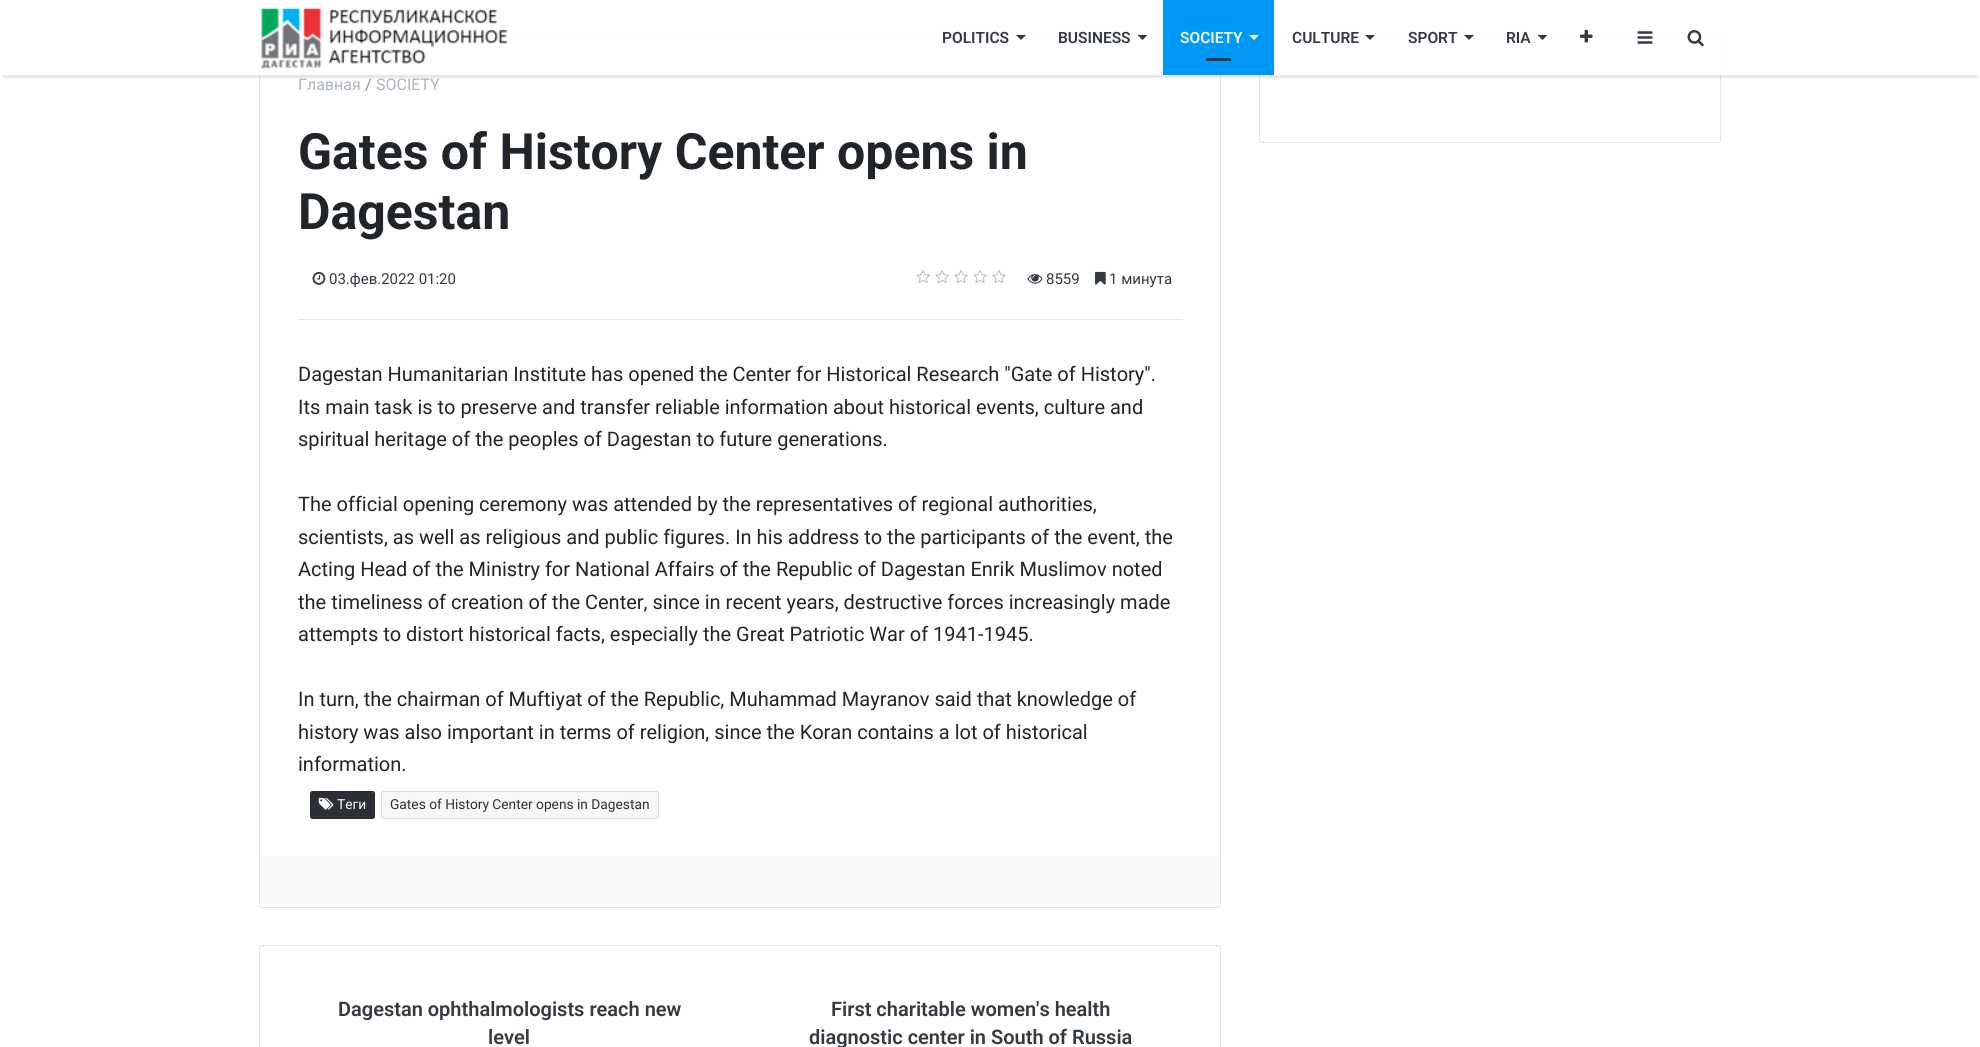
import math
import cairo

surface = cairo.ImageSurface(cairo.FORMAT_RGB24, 1980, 1047)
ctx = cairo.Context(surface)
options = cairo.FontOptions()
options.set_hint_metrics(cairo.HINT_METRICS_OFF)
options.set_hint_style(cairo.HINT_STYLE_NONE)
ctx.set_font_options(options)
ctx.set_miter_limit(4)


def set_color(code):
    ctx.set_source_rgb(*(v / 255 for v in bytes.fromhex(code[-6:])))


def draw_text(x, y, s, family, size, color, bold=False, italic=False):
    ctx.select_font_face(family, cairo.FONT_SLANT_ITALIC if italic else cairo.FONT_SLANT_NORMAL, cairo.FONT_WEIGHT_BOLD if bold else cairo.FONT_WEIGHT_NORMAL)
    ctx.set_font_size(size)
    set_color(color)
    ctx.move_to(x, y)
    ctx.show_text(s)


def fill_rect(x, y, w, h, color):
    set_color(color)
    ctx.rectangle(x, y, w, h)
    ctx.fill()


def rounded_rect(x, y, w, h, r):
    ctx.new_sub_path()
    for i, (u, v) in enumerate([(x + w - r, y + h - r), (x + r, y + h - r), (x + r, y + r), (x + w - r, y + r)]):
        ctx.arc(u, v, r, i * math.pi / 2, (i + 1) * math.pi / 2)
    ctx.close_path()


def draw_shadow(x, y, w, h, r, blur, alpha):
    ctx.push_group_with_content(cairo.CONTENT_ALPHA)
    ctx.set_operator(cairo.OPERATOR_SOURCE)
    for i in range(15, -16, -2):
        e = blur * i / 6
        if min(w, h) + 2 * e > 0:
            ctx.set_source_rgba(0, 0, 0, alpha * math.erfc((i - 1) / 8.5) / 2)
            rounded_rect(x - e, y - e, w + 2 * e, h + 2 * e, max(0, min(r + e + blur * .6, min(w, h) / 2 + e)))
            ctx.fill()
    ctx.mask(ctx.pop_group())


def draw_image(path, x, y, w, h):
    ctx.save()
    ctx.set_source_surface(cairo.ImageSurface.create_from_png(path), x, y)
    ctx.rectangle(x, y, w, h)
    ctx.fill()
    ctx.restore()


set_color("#ffffff")
ctx.paint()
set_color("#48a95a")
ctx.new_path()
ctx.move_to(259, -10)
ctx.line_to(270, -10)
ctx.line_to(259, 1)
ctx.close_path()
ctx.fill()
rounded_rect(259.5, 33.5, 961, 874, 2)
set_color("#e6e6e6")
ctx.set_line_width(1)
ctx.stroke()
rounded_rect(1259.5, 33.5, 461, 109, 2)
ctx.stroke()
ctx.save()
ctx.rectangle(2, 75, 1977, 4)
ctx.clip()
set_color("#000000")
draw_shadow(3, 8, 1975, 70, 0, 1, 0.1)
ctx.restore()
ctx.set_source_rgba(1, 1, 1, 0.95)
ctx.rectangle(259, 0, 1462, 75)
ctx.fill()
draw_image("assets/img1.png", 261, 8, 247, 61)
draw_text(942, 43, "POLITICS", "Roboto SemiBold", 15.5, "#343a40")
ctx.new_path()
ctx.move_to(1016, 35)
ctx.line_to(1026, 35)
ctx.line_to(1021, 40)
ctx.close_path()
ctx.fill()
draw_text(1058, 43, "BUSINESS", "Roboto SemiBold", 15.5, "#343a40")
ctx.new_path()
ctx.move_to(1137.5, 35)
ctx.line_to(1147.5, 35)
ctx.line_to(1142.5, 40)
ctx.close_path()
ctx.fill()
fill_rect(1163, 0, 111, 75, "#0098f7")
draw_text(1180, 43, "SOCIETY", "Roboto SemiBold", 15.5, "#f8f9fa")
ctx.new_path()
ctx.move_to(1249, 35)
ctx.line_to(1259, 35)
ctx.line_to(1254, 40)
ctx.close_path()
ctx.fill()
fill_rect(1206, 58, 25, 3, "#343a40")
draw_text(1292, 43, "CULTURE", "Roboto SemiBold", 15.5, "#343a40")
ctx.new_path()
ctx.move_to(1365, 35)
ctx.line_to(1375, 35)
ctx.line_to(1370, 40)
ctx.close_path()
ctx.fill()
draw_text(1408, 43, "SPORT", "Roboto SemiBold", 15.5, "#343a40")
ctx.new_path()
ctx.move_to(1464, 35)
ctx.line_to(1474, 35)
ctx.line_to(1469, 40)
ctx.close_path()
ctx.fill()
draw_text(1506, 43, "RIA", "Roboto SemiBold", 15.5, "#343a40")
ctx.new_path()
ctx.move_to(1537.5, 35)
ctx.line_to(1547.5, 35)
ctx.line_to(1542.5, 40)
ctx.close_path()
ctx.fill()
draw_image("assets/img2.png", 1580, 29, 13, 14)
draw_image("assets/img3.png", 1637, 31, 16, 13)
draw_image("assets/img4.png", 1687, 30, 17, 17)
draw_text(298, 90, "Главная", "Roboto", 16, "#adb5bd")
draw_text(365, 90, "/", "Roboto", 16, "#868e96")
draw_text(376, 90, "SOCIETY", "Roboto", 16, "#adb5bd")
fill_rect(298, 319, 885, 1, "#e6e6e6")
draw_text(298, 169, "Gates of History Center opens in", "Roboto", 50, "#212529", bold=True)
draw_text(298, 229, "Dagestan", "Roboto", 50, "#212529", bold=True)
draw_image("assets/img5.png", 312, 272, 14, 13)
draw_text(329, 284, "03.фев.2022 01:20", "Roboto", 15, "#343a40")
draw_image("assets/img6.png", 916, 270, 90, 14)
draw_image("assets/img7.png", 1027, 274, 16, 10)
draw_text(1046, 284, "8559", "Roboto", 15, "#343a40")
draw_image("assets/img8.png", 1095, 271, 11, 14)
draw_text(1109, 284, "1 минута", "Roboto", 15, "#343a40")
draw_text(298, 381, "Dagestan Humanitarian Institute has opened the Center for Historical Research \"Gate of History\".", "Roboto", 20, "#212529")
draw_text(298, 414, "Its main task is to preserve and transfer reliable information about historical events, culture and", "Roboto", 20, "#212529")
draw_text(298, 446, "spiritual heritage of the peoples of Dagestan to future generations.", "Roboto", 20, "#212529")
draw_text(298, 511, "The official opening ceremony was attended by the representatives of regional authorities,", "Roboto", 20, "#212529")
draw_text(298, 544, "scientists, as well as religious and public figures. In his address to the participants of the event, the", "Roboto", 20, "#212529")
draw_text(298, 576, "Acting Head of the Ministry for National Affairs of the Republic of Dagestan Enrik Muslimov noted", "Roboto", 20, "#212529")
draw_text(298, 609, "the timeliness of creation of the Center, since in recent years, destructive forces increasingly made", "Roboto", 20, "#212529")
draw_text(298, 641, "attempts to distort historical facts, especially the Great Patriotic War of 1941-1945.", "Roboto", 20, "#212529")
draw_text(298, 706, "In turn, the chairman of Muftiyat of the Republic, Muhammad Mayranov said that knowledge of", "Roboto", 20, "#212529")
draw_text(298, 739, "history was also important in terms of religion, since the Koran contains a lot of historical", "Roboto", 20, "#212529")
draw_text(298, 771, "information.", "Roboto", 20, "#212529")
set_color("#2c2f34")
rounded_rect(310, 791, 65, 28, 2.5)
ctx.fill()
rounded_rect(310.5, 791.5, 64, 27, 2)
ctx.set_source_rgba(0, 0, 0, 0.1)
ctx.stroke()
draw_image("assets/img9.png", 318, 797, 16, 13)
draw_text(337, 809, "Теги", "Roboto", 13.75, "#ffffff")
set_color("#f7f7f7")
rounded_rect(381.5, 791.5, 277, 27, 2)
ctx.fill_preserve()
set_color("#dedede")
ctx.stroke()
draw_text(390, 809, "Gates of History Center opens in Dagestan", "Roboto", 13.75, "#2c2f34")
fill_rect(260, 856, 960, 50, "#fafafa")
rounded_rect(259.5, 945.5, 961, 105, 2)
set_color("#e6e6e6")
ctx.stroke()
draw_text(338, 1016, "Dagestan ophthalmologists reach new", "Roboto SemiBold", 20, "#343a40")
draw_text(488, 1044, "level", "Roboto SemiBold", 20, "#343a40")
draw_text(831, 1016, "First charitable women's health", "Roboto SemiBold", 20, "#343a40")
draw_text(809, 1044, "diagnostic center in South of Russia", "Roboto SemiBold", 20, "#343a40")
surface.write_to_png("output.png")
